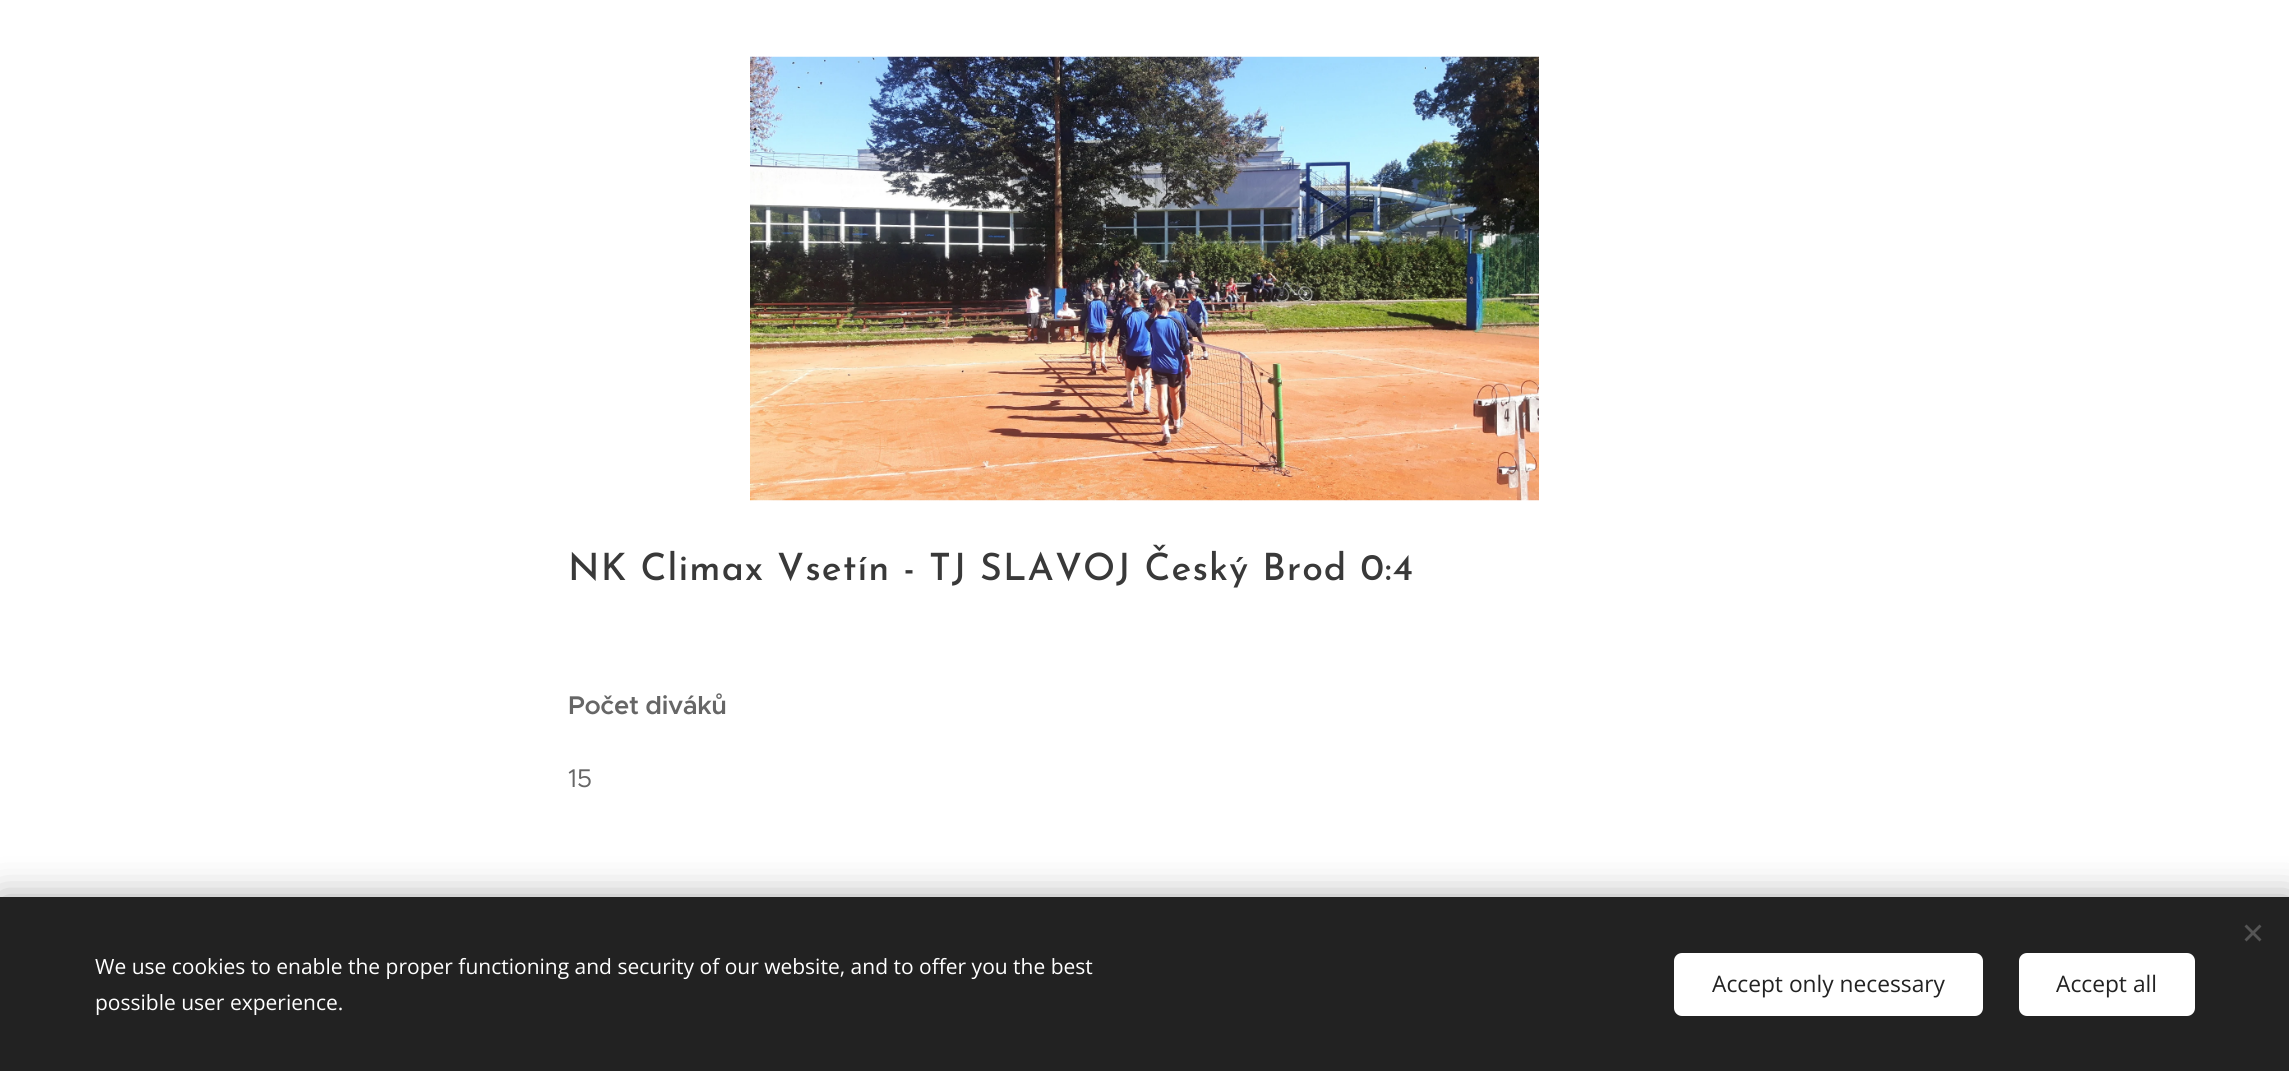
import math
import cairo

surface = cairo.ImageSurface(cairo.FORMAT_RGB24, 2289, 1071)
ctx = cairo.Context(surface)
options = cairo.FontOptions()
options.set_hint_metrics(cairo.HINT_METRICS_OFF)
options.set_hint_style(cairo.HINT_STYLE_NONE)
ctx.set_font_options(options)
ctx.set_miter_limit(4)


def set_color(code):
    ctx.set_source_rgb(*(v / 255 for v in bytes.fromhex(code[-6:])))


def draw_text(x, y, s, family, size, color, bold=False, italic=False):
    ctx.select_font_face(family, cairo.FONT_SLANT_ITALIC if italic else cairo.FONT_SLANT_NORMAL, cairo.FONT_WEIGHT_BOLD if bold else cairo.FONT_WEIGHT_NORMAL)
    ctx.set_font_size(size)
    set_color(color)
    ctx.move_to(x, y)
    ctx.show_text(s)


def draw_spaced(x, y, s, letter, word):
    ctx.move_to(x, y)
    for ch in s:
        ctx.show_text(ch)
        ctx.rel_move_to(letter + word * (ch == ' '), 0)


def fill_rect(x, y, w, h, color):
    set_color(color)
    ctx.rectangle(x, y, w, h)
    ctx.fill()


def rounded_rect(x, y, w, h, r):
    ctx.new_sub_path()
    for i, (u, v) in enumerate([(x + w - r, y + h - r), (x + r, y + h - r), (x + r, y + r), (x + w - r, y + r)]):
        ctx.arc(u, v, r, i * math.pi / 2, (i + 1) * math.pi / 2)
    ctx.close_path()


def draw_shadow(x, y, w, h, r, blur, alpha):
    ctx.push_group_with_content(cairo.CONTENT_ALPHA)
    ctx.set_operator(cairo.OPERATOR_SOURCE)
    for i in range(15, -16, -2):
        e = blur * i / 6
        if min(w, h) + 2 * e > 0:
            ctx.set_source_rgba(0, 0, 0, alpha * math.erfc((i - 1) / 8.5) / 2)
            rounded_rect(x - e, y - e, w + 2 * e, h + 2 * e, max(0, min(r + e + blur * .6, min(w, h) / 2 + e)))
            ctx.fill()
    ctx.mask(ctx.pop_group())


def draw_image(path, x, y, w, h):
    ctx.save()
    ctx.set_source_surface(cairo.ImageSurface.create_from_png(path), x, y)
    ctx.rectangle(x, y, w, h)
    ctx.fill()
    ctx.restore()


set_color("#ffffff")
ctx.paint()
draw_image("assets/img1.png", 750, 56, 789, 445)
ctx.select_font_face("Josefin Sans Medium")
ctx.set_font_size(37.5)
set_color("#393939")
draw_spaced(568, 580, "NK Climax Vsetín - TJ SLAVOJ Český Brod 0:4", 1.1, 0)
ctx.select_font_face("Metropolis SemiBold")
ctx.set_font_size(25.75)
set_color("#666666")
draw_spaced(568, 714, "Počet diváků", -0.4, 0)
ctx.select_font_face("Metropolis")
draw_spaced(568, 787, "15", -0.4, 0)
set_color("#000000")
draw_shadow(0, 897, 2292, 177, 0, 19, 0.33)
fill_rect(0, 897, 2289, 174, "#222222")
set_color("#555555")
ctx.new_path()
ctx.move_to(2244.5, 939.5)
ctx.line_to(2259.5, 924.5)
ctx.line_to(2261.5, 926.5)
ctx.line_to(2246.5, 941.5)
ctx.close_path()
ctx.fill()
ctx.new_path()
ctx.move_to(2246.5, 924.5)
ctx.line_to(2261.5, 939.5)
ctx.line_to(2259.5, 941.5)
ctx.line_to(2244.5, 926.5)
ctx.close_path()
ctx.fill()
draw_text(95, 974, "We use cookies to enable the proper functioning and security of our website, and to offer you the best", "Open Sans", 21, "#ffffff")
draw_text(95, 1010, "possible user experience.", "Open Sans", 21, "#ffffff")
rounded_rect(1674, 953, 309, 63, 8)
ctx.fill()
draw_text(1712, 992, "Accept only necessary", "Open Sans", 22.75, "#222222")
set_color("#ffffff")
rounded_rect(2019, 953, 176, 63, 8)
ctx.fill()
draw_text(2056, 992, "Accept all", "Open Sans", 22.75, "#222222")
surface.write_to_png("output.png")
